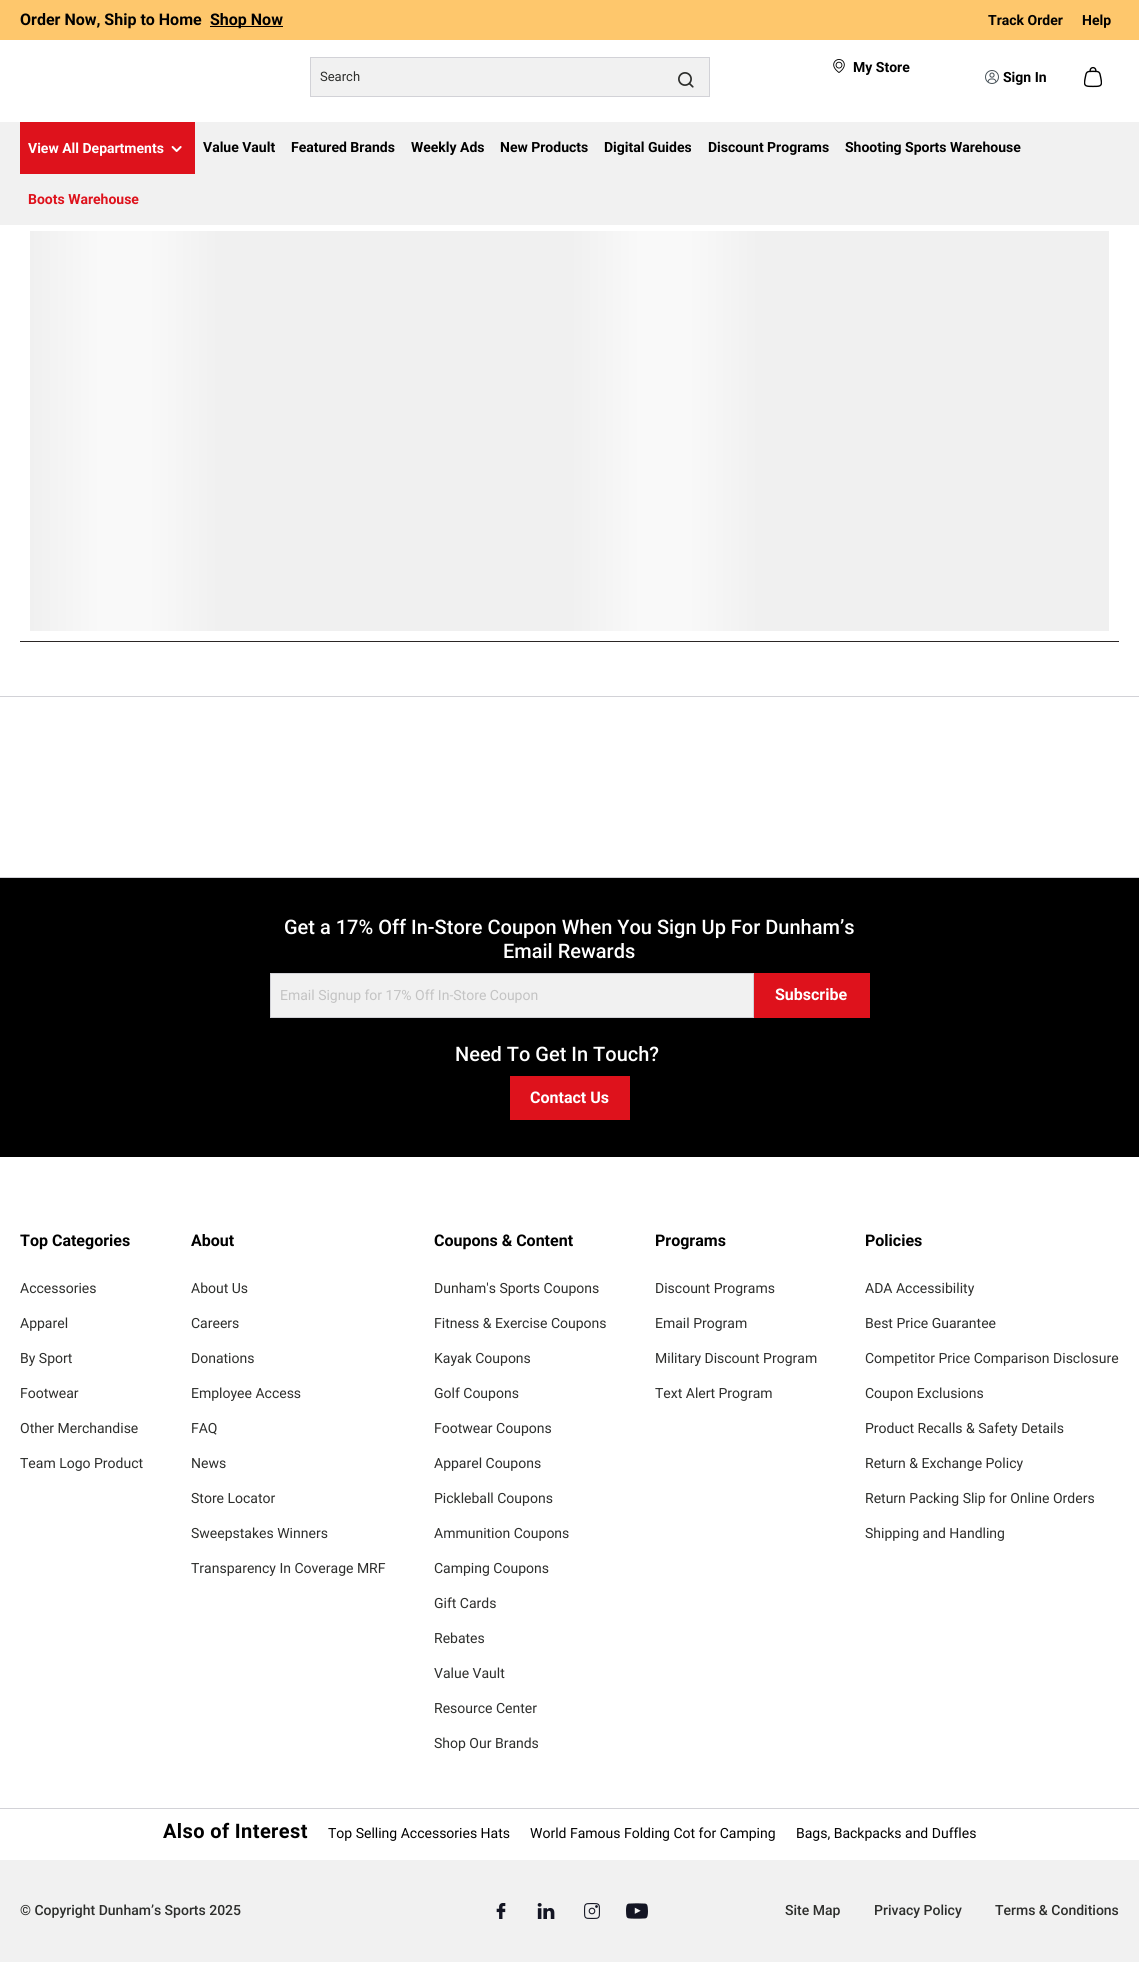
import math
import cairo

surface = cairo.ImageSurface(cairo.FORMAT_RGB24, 1139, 1962)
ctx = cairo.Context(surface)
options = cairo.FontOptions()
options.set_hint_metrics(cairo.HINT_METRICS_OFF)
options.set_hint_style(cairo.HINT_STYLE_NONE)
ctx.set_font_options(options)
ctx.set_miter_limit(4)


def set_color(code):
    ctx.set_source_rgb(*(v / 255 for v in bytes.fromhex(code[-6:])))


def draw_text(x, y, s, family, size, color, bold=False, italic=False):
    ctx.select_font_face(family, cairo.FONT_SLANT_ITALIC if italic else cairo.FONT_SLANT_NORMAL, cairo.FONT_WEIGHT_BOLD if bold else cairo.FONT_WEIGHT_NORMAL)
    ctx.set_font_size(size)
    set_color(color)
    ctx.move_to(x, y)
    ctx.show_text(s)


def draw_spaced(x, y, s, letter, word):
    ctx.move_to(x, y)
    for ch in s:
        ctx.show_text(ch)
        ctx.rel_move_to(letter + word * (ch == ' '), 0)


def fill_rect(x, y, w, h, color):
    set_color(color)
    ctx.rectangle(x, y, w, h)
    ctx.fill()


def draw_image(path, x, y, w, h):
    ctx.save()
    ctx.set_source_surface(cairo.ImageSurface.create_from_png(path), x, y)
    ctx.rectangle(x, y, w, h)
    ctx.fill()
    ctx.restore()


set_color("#ffffff")
ctx.paint()
fill_rect(0, 0, 1139, 40, "#fec76c")
draw_text(20, 25, "Order Now, Ship to Home", "Roboto", 16, "#000000", bold=True)
fill_rect(210, 26, 73, 1, "#000000")
draw_text(210, 25, "Shop Now", "Roboto", 16, "#000000", bold=True)
draw_text(988, 25, "Track Order", "Roboto", 14, "#000000", bold=True)
draw_text(1082, 25, "Help", "Roboto", 14, "#000000", bold=True)
set_color("#f1f1f1")
ctx.rectangle(310.5, 57.5, 399, 39)
ctx.fill_preserve()
set_color("#d2d2d7")
ctx.set_line_width(1)
ctx.stroke()
draw_text(320, 81, "Search", "Roboto", 13, "#2d2e2c")
draw_image("assets/img1.png", 678, 72, 16, 16)
draw_image("assets/img2.png", 833, 59, 12, 14)
draw_text(853, 72, "My Store", "Roboto", 14, "#000000", bold=True)
draw_image("assets/img3.png", 985, 70, 14, 14)
draw_text(1003, 82, "Sign In", "Roboto", 14, "#000000", bold=True)
draw_image("assets/img4.png", 1084, 66, 18, 22)
fill_rect(0, 122, 1139, 103, "#f1f1f1")
fill_rect(20, 122, 175, 52, "#de121c")
draw_text(28, 153, "View All Departments", "Roboto", 14, "#ffffff", bold=True)
draw_image("assets/img5.png", 171, 146, 11, 6)
draw_text(203, 152, "Value Vault", "Roboto", 14, "#000000", bold=True)
draw_text(291, 152, "Featured Brands", "Roboto", 14, "#000000", bold=True)
draw_text(411, 152, "Weekly Ads", "Roboto", 14, "#000000", bold=True)
draw_text(500, 152, "New Products", "Roboto", 14, "#000000", bold=True)
draw_text(604, 152, "Digital Guides", "Roboto", 14, "#000000", bold=True)
draw_text(708, 152, "Discount Programs", "Roboto", 14, "#000000", bold=True)
draw_text(845, 152, "Shooting Sports Warehouse", "Roboto", 14, "#000000", bold=True)
draw_text(28, 204, "Boots Warehouse", "Roboto", 14, "#de121c", bold=True)
fill_rect(20, 641, 1099, 1, "#2b2625")
fill_rect(30, 231, 1079, 400, "#f0f0f0")
gradient = cairo.LinearGradient(30, 431, 219, 431)
gradient.add_color_stop_rgba(0, 0.941, 0.941, 0.941, 1)
gradient.add_color_stop_rgba(0.37, 0.976, 0.976, 0.976, 1)
gradient.add_color_stop_rgba(0.63, 0.976, 0.976, 0.976, 1)
gradient.add_color_stop_rgba(1, 0.941, 0.941, 0.941, 1)
ctx.set_source(gradient)
ctx.new_path()
ctx.move_to(35, 231)
ctx.line_to(219, 231)
ctx.line_to(219, 631)
ctx.line_to(35, 631)
ctx.curve_to(32, 631, 30, 629, 30, 626)
ctx.line_to(30, 236)
ctx.curve_to(30, 233, 32, 231, 35, 231)
ctx.close_path()
ctx.fill()
gradient = cairo.LinearGradient(570, 431, 759, 431)
gradient.add_color_stop_rgba(0, 0.941, 0.941, 0.941, 1)
gradient.add_color_stop_rgba(0.37, 0.976, 0.976, 0.976, 1)
gradient.add_color_stop_rgba(0.63, 0.976, 0.976, 0.976, 1)
gradient.add_color_stop_rgba(1, 0.941, 0.941, 0.941, 1)
ctx.set_source(gradient)
ctx.new_path()
ctx.move_to(575, 231)
ctx.line_to(759, 231)
ctx.line_to(759, 631)
ctx.line_to(575, 631)
ctx.curve_to(572, 631, 570, 629, 570, 626)
ctx.line_to(570, 236)
ctx.curve_to(570, 233, 572, 231, 575, 231)
ctx.close_path()
ctx.fill()
fill_rect(0, 696, 1139, 1, "#d2d2d7")
fill_rect(0, 877, 1139, 1, "#d2d2d7")
fill_rect(0, 878, 1139, 279, "#000000")
draw_text(284, 934, "Get a 17% Off In-Store Coupon When You Sign Up For Dunham’s", "Roboto Medium", 20, "#ffffff")
draw_text(503, 958, "Email Rewards", "Roboto Medium", 20, "#ffffff")
set_color("#f1f1f1")
ctx.rectangle(270.5, 973.5, 483, 44)
ctx.fill_preserve()
set_color("#d2d2d7")
ctx.stroke()
draw_text(280, 1000, "Email Signup for 17% Off In-Store Coupon", "Roboto", 14, "#c3c3c3")
fill_rect(754, 973, 116, 45, "#de121c")
draw_text(775, 1000, "Subscribe", "Roboto", 16, "#ffffff", bold=True)
draw_text(455, 1061, "Need To Get In Touch?", "Roboto Medium", 20, "#ffffff")
fill_rect(510, 1076, 120, 44, "#de121c")
draw_text(530, 1103, "Contact Us", "Roboto", 16, "#ffffff", bold=True)
draw_text(20, 1246, "Top Categories", "Roboto", 16, "#000000", bold=True)
draw_text(20, 1293, "Accessories", "Roboto", 14, "#2d2e2c")
draw_text(20, 1328, "Apparel", "Roboto", 14, "#2d2e2c")
draw_text(20, 1363, "By Sport", "Roboto", 14, "#2d2e2c")
draw_text(20, 1398, "Footwear", "Roboto", 14, "#2d2e2c")
draw_text(20, 1433, "Other Merchandise", "Roboto", 14, "#2d2e2c")
draw_text(20, 1468, "Team Logo Product", "Roboto", 14, "#2d2e2c")
draw_text(191, 1246, "About", "Roboto", 16, "#000000", bold=True)
draw_text(191, 1293, "About Us", "Roboto", 14, "#2d2e2c")
draw_text(191, 1328, "Careers", "Roboto", 14, "#2d2e2c")
draw_text(191, 1363, "Donations", "Roboto", 14, "#2d2e2c")
draw_text(191, 1398, "Employee Access", "Roboto", 14, "#2d2e2c")
draw_text(191, 1433, "FAQ", "Roboto", 14, "#2d2e2c")
draw_text(191, 1468, "News", "Roboto", 14, "#2d2e2c")
draw_text(191, 1503, "Store Locator", "Roboto", 14, "#2d2e2c")
draw_text(191, 1538, "Sweepstakes Winners", "Roboto", 14, "#2d2e2c")
draw_text(191, 1573, "Transparency In Coverage MRF", "Roboto", 14, "#2d2e2c")
draw_text(434, 1246, "Coupons & Content", "Roboto", 16, "#000000", bold=True)
draw_text(434, 1293, "Dunham's Sports Coupons", "Roboto", 14, "#2d2e2c")
draw_text(434, 1328, "Fitness & Exercise Coupons", "Roboto", 14, "#2d2e2c")
draw_text(434, 1363, "Kayak Coupons", "Roboto", 14, "#2d2e2c")
draw_text(434, 1398, "Golf Coupons", "Roboto", 14, "#2d2e2c")
draw_text(434, 1433, "Footwear Coupons", "Roboto", 14, "#2d2e2c")
draw_text(434, 1468, "Apparel Coupons", "Roboto", 14, "#2d2e2c")
draw_text(434, 1503, "Pickleball Coupons", "Roboto", 14, "#2d2e2c")
draw_text(434, 1538, "Ammunition Coupons", "Roboto", 14, "#2d2e2c")
draw_text(434, 1573, "Camping Coupons", "Roboto", 14, "#2d2e2c")
draw_text(434, 1608, "Gift Cards", "Roboto", 14, "#2d2e2c")
draw_text(434, 1643, "Rebates", "Roboto", 14, "#2d2e2c")
draw_text(434, 1678, "Value Vault", "Roboto", 14, "#2d2e2c")
draw_text(434, 1713, "Resource Center", "Roboto", 14, "#2d2e2c")
draw_text(434, 1748, "Shop Our Brands", "Roboto", 14, "#2d2e2c")
draw_text(655, 1246, "Programs", "Roboto", 16, "#000000", bold=True)
draw_text(655, 1293, "Discount Programs", "Roboto", 14, "#2d2e2c")
draw_text(655, 1328, "Email Program", "Roboto", 14, "#2d2e2c")
draw_text(655, 1363, "Military Discount Program", "Roboto", 14, "#2d2e2c")
draw_text(655, 1398, "Text Alert Program", "Roboto", 14, "#2d2e2c")
draw_text(865, 1246, "Policies", "Roboto", 16, "#000000", bold=True)
draw_text(865, 1293, "ADA Accessibility", "Roboto", 14, "#2d2e2c")
draw_text(865, 1328, "Best Price Guarantee", "Roboto", 14, "#2d2e2c")
draw_text(865, 1363, "Competitor Price Comparison Disclosure", "Roboto", 14, "#2d2e2c")
draw_text(865, 1398, "Coupon Exclusions", "Roboto", 14, "#2d2e2c")
draw_text(865, 1433, "Product Recalls & Safety Details", "Roboto", 14, "#2d2e2c")
draw_text(865, 1468, "Return & Exchange Policy", "Roboto", 14, "#2d2e2c")
draw_text(865, 1503, "Return Packing Slip for Online Orders", "Roboto", 14, "#2d2e2c")
draw_text(865, 1538, "Shipping and Handling", "Roboto", 14, "#2d2e2c")
fill_rect(0, 1808, 1139, 1, "#d2d2d7")
ctx.select_font_face("Roboto", cairo.FONT_SLANT_NORMAL, cairo.FONT_WEIGHT_BOLD)
ctx.set_font_size(20)
set_color("#000000")
draw_spaced(163, 1838, "Also of Interest", 0.4, 0)
draw_text(328, 1838, "Top Selling Accessories Hats", "Roboto", 14, "#000000")
draw_text(530, 1838, "World Famous Folding Cot for Camping", "Roboto", 14, "#000000")
draw_text(796, 1838, "Bags, Backpacks and Duffles", "Roboto", 14, "#000000")
fill_rect(0, 1860, 1139, 102, "#f1f1f1")
draw_text(20, 1915, "© Copyright Dunham’s Sports 2025", "Roboto Medium", 14, "#2d2e2c")
draw_image("assets/img6.png", 496, 1903, 10, 16)
draw_image("assets/img7.png", 537, 1903, 18, 16)
draw_image("assets/img8.png", 584, 1903, 16, 16)
draw_image("assets/img9.png", 626, 1903, 22, 16)
draw_text(785, 1915, "Site Map", "Roboto Medium", 14, "#2d2e2c")
draw_text(874, 1915, "Privacy Policy", "Roboto Medium", 14, "#2d2e2c")
draw_text(995, 1915, "Terms & Conditions", "Roboto Medium", 14, "#2d2e2c")
surface.write_to_png("output.png")
